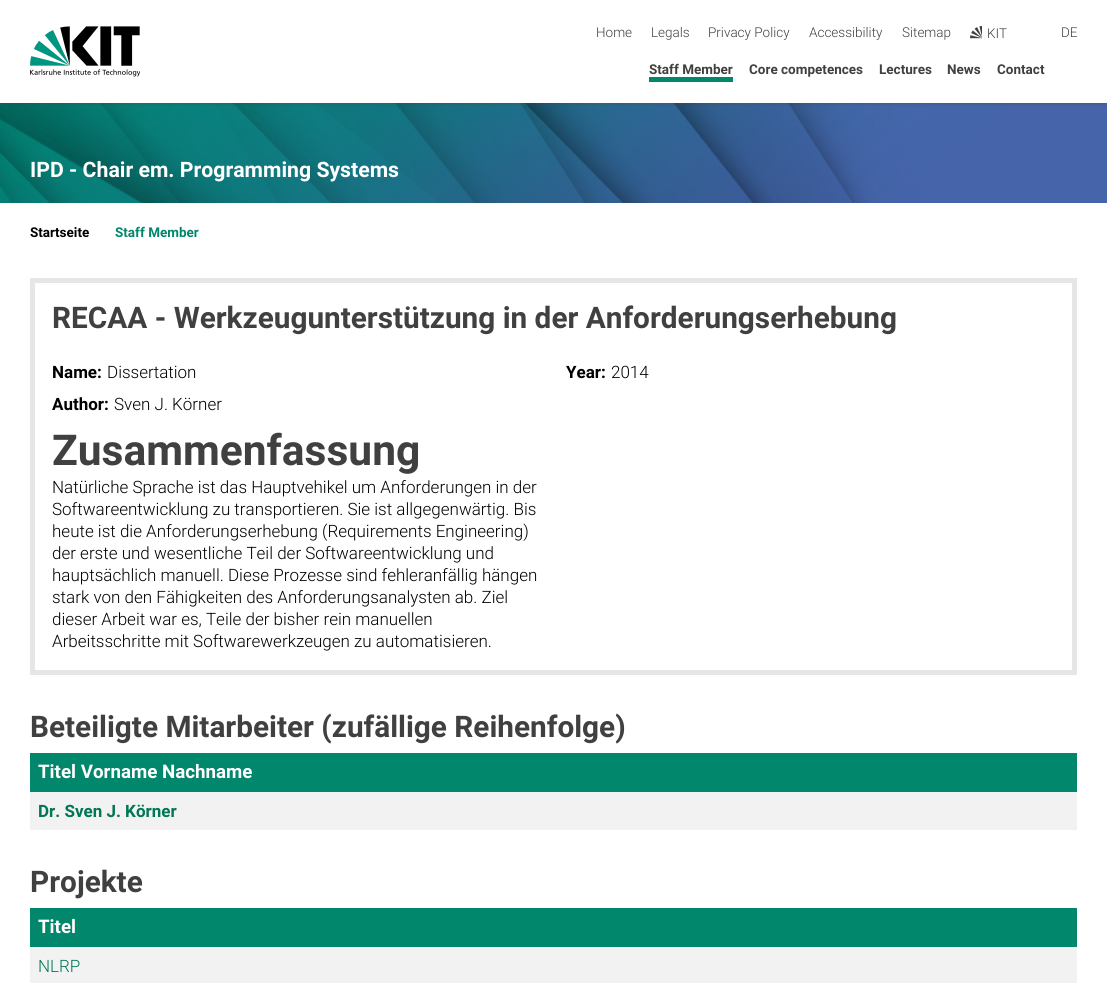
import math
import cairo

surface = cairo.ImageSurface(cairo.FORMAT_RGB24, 1107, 983)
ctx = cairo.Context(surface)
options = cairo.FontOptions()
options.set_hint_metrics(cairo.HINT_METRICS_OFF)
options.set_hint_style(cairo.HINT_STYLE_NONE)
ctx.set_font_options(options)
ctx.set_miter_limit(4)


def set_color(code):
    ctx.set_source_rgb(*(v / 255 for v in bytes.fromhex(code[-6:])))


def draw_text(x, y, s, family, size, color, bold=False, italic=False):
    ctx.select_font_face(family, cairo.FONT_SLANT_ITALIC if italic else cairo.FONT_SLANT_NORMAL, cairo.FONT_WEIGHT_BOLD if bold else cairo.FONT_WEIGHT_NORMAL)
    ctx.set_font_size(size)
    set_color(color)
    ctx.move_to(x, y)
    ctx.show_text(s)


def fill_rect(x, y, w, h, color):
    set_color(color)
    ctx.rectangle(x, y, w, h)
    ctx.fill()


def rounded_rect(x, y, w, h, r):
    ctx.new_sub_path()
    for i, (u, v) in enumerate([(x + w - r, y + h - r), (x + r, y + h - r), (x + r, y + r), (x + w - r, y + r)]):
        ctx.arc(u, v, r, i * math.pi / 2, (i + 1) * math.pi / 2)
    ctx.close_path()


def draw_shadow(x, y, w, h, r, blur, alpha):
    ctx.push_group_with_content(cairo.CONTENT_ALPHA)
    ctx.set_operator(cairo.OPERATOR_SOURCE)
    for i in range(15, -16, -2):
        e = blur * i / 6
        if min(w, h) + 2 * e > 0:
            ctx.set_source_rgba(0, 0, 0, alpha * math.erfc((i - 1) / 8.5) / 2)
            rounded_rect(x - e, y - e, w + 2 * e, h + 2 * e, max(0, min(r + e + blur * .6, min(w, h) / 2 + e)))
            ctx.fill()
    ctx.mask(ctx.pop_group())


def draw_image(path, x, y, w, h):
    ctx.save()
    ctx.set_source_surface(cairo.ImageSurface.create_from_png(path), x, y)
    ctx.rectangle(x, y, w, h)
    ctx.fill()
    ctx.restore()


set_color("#ffffff")
ctx.paint()
draw_image("assets/img3.png", 0, 103, 1107, 100)
ctx.save()
ctx.rectangle(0, 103, 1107, 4)
ctx.clip()
set_color("#404040")
draw_shadow(0, 0, 1107, 103, 0, 2.5, 0.5)
ctx.restore()
draw_image("assets/img1.png", 30, 26, 110, 51)
draw_text(596, 37, "Home", "Roboto Light", 13.5, "#404040")
draw_text(651, 37, "Legals", "Roboto Light", 13.5, "#404040")
draw_text(708, 37, "Privacy Policy", "Roboto Light", 13.5, "#404040")
draw_text(809, 37, "Accessibility", "Roboto Light", 13.5, "#404040")
draw_text(902, 37, "Sitemap", "Roboto Light", 13.5, "#404040")
draw_image("assets/img2.png", 970, 26, 12, 13)
draw_text(987, 38, "KIT", "Roboto Light", 13.5, "#404040")
draw_text(1061, 37, "DE", "Roboto Light", 13.5, "#404040")
draw_text(649, 74, "Staff Member", "Roboto", 13.5, "#404040", bold=True)
fill_rect(649, 77, 84, 5, "#00876c")
draw_text(749, 74, "Core competences", "Roboto", 13.5, "#404040", bold=True)
draw_text(879, 74, "Lectures", "Roboto", 13.5, "#404040", bold=True)
draw_text(947, 74, "News", "Roboto", 13.5, "#404040", bold=True)
draw_text(997, 74, "Contact", "Roboto", 13.5, "#404040", bold=True)
draw_text(30, 177, "IPD - Chair em. Programming Systems", "Roboto", 21.25, "#ffffff", bold=True)
draw_text(30, 237, "Startseite", "Roboto", 13.5, "#000000", bold=True)
draw_text(115, 237, "Staff Member", "Roboto", 13.5, "#00876c", bold=True)
ctx.rectangle(32.5, 280.5, 1042, 392)
set_color("#e6e6e6")
ctx.set_line_width(5)
ctx.stroke()
draw_text(52, 328, "RECAA - Werkzeugunterstützung in der Anforderungserhebung", "Roboto", 29.75, "#404040", bold=True)
draw_text(52, 378, "Name:", "Roboto", 17, "#000000", bold=True)
draw_text(107, 378, "Dissertation", "Roboto Light", 17, "#000000")
draw_text(52, 410, "Author:", "Roboto", 17, "#000000", bold=True)
draw_text(114, 410, "Sven J. Körner", "Roboto Light", 17, "#000000")
draw_text(52, 465, "Zusammenfassung", "Roboto", 42.5, "#404040", bold=True)
draw_text(52, 493, "Natürliche Sprache ist das Hauptvehikel um Anforderungen in der", "Roboto Light", 17, "#000000")
draw_text(52, 515, "Softwareentwicklung zu transportieren. Sie ist allgegenwärtig. Bis", "Roboto Light", 17, "#000000")
draw_text(52, 537, "heute ist die Anforderungserhebung (Requirements Engineering)", "Roboto Light", 17, "#000000")
draw_text(52, 559, "der erste und wesentliche Teil der Softwareentwicklung und", "Roboto Light", 17, "#000000")
draw_text(52, 581, "hauptsächlich manuell. Diese Prozesse sind fehleranfällig hängen", "Roboto Light", 17, "#000000")
draw_text(52, 603, "stark von den Fähigkeiten des Anforderungsanalysten ab. Ziel", "Roboto Light", 17, "#000000")
draw_text(52, 625, "dieser Arbeit war es, Teile der bisher rein manuellen", "Roboto Light", 17, "#000000")
draw_text(52, 647, "Arbeitsschritte mit Softwarewerkzeugen zu automatisieren.", "Roboto Light", 17, "#000000")
draw_text(566, 378, "Year:", "Roboto", 17, "#000000", bold=True)
draw_text(611, 378, "2014", "Roboto Light", 17, "#000000")
draw_text(30, 737, "Beteiligte Mitarbeiter (zufällige Reihenfolge)", "Roboto", 29.75, "#404040", bold=True)
fill_rect(30, 753, 1047, 39, "#00876c")
draw_text(38, 778, "Titel Vorname Nachname", "Roboto", 18.75, "#ffffff", bold=True)
fill_rect(30, 792, 1047, 38, "#f2f2f2")
draw_text(38, 817, "Dr. Sven J. Körner", "Roboto", 17, "#007755", bold=True)
draw_text(30, 892, "Projekte", "Roboto", 29.75, "#404040", bold=True)
fill_rect(30, 908, 1047, 39, "#00876c")
draw_text(38, 933, "Titel", "Roboto", 18.75, "#ffffff", bold=True)
fill_rect(30, 947, 1047, 36, "#f2f2f2")
draw_text(38, 972, "NLRP", "Roboto Light", 17, "#007755")
surface.write_to_png("output.png")
